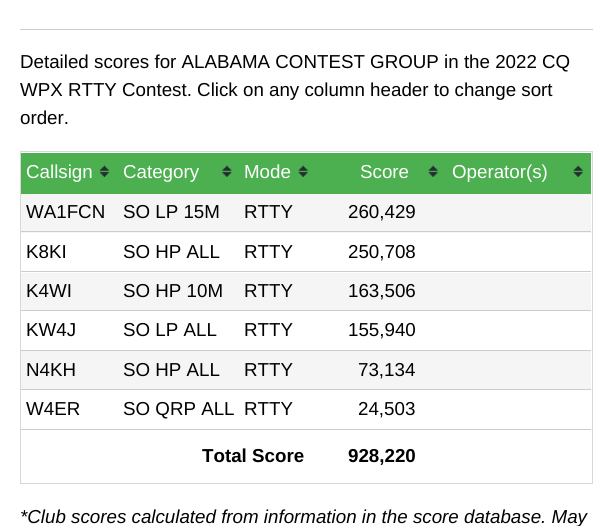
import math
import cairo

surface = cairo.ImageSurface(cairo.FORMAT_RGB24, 612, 526)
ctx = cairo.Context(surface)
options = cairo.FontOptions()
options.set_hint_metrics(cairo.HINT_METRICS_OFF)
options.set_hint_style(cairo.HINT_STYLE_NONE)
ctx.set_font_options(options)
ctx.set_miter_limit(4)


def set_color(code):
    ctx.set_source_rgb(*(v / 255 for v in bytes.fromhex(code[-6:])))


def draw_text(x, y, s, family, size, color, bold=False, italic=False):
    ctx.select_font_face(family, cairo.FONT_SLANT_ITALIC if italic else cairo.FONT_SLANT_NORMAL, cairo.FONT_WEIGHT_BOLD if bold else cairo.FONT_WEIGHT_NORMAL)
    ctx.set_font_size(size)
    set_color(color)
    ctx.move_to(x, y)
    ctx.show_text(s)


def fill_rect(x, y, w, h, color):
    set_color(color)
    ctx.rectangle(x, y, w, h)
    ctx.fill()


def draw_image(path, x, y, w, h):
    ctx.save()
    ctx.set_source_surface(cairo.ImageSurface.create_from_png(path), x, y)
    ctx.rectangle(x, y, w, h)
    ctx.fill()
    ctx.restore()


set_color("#ffffff")
ctx.paint()
fill_rect(20, 29, 573, 1, "#cccccc")
draw_text(20, 68, "Detailed scores for ALABAMA CONTEST GROUP in the 2022 CQ", "Liberation Sans", 18.75, "#000000")
draw_text(20, 96, "WPX RTTY Contest. Click on any column header to change sort", "Liberation Sans", 18.75, "#000000")
draw_text(20, 124, "order.", "Liberation Sans", 18.75, "#000000")
ctx.rectangle(20.5, 151.5, 572, 332)
set_color("#d8d8d8")
ctx.set_line_width(1)
ctx.stroke()
fill_rect(21, 153, 570, 41, "#4caf50")
draw_image("assets/img1.png", 99, 165, 10, 12)
draw_text(26, 178, "Callsign", "Liberation Sans", 18.75, "#ffffff")
draw_image("assets/img2.png", 222, 165, 10, 12)
draw_text(123, 178, "Category", "Liberation Sans", 18.75, "#ffffff")
draw_image("assets/img3.png", 298, 165, 10, 12)
draw_text(244, 178, "Mode", "Liberation Sans", 18.75, "#ffffff")
draw_image("assets/img3.png", 428, 165, 10, 12)
draw_text(360, 178, "Score", "Liberation Sans", 18.75, "#ffffff")
draw_image("assets/img3.png", 573, 165, 10, 12)
draw_text(452, 178, "Operator(s)", "Liberation Sans", 18.75, "#ffffff")
fill_rect(21, 194, 570, 39, "#f5f5f5")
fill_rect(21, 231, 570, 1, "#cccccc")
draw_text(26, 218, "WA1FCN", "Liberation Sans", 18.75, "#000000")
draw_text(123, 218, "SO LP 15M", "Liberation Sans", 18.75, "#000000")
draw_text(244, 218, "RTTY", "Liberation Sans", 18.75, "#000000")
draw_text(348, 218, "260,429", "Liberation Sans", 18.75, "#000000")
fill_rect(21, 271, 570, 1, "#cccccc")
draw_text(26, 258, "K8KI", "Liberation Sans", 18.75, "#000000")
draw_text(123, 258, "SO HP ALL", "Liberation Sans", 18.75, "#000000")
draw_text(244, 258, "RTTY", "Liberation Sans", 18.75, "#000000")
draw_text(348, 258, "250,708", "Liberation Sans", 18.75, "#000000")
fill_rect(21, 273, 570, 37, "#f5f5f5")
fill_rect(21, 310, 570, 1, "#cccccc")
draw_text(26, 297, "K4WI", "Liberation Sans", 18.75, "#000000")
draw_text(123, 297, "SO HP 10M", "Liberation Sans", 18.75, "#000000")
draw_text(244, 297, "RTTY", "Liberation Sans", 18.75, "#000000")
draw_text(348, 297, "163,506", "Liberation Sans", 18.75, "#000000")
fill_rect(21, 350, 570, 1, "#cccccc")
draw_text(26, 336, "KW4J", "Liberation Sans", 18.75, "#000000")
draw_text(123, 336, "SO LP ALL", "Liberation Sans", 18.75, "#000000")
draw_text(244, 336, "RTTY", "Liberation Sans", 18.75, "#000000")
draw_text(348, 336, "155,940", "Liberation Sans", 18.75, "#000000")
fill_rect(21, 351, 570, 38, "#f5f5f5")
fill_rect(21, 389, 570, 1, "#cccccc")
draw_text(26, 376, "N4KH", "Liberation Sans", 18.75, "#000000")
draw_text(123, 376, "SO HP ALL", "Liberation Sans", 18.75, "#000000")
draw_text(244, 376, "RTTY", "Liberation Sans", 18.75, "#000000")
draw_text(358, 376, "73,134", "Liberation Sans", 18.75, "#000000")
fill_rect(21, 429, 570, 1, "#cccccc")
draw_text(26, 415, "W4ER", "Liberation Sans", 18.75, "#000000")
draw_text(123, 415, "SO QRP ALL", "Liberation Sans", 18.75, "#000000")
draw_text(244, 415, "RTTY", "Liberation Sans", 18.75, "#000000")
draw_text(358, 415, "24,503", "Liberation Sans", 18.75, "#000000")
draw_text(202, 462, "Total Score", "Liberation Sans", 18.75, "#000000", bold=True)
draw_text(348, 462, "928,220", "Liberation Sans", 18.75, "#000000", bold=True)
draw_text(20, 523, "*Club scores calculated from information in the score database. May", "Liberation Sans", 18.75, "#000000", italic=True)
surface.write_to_png("output.png")
